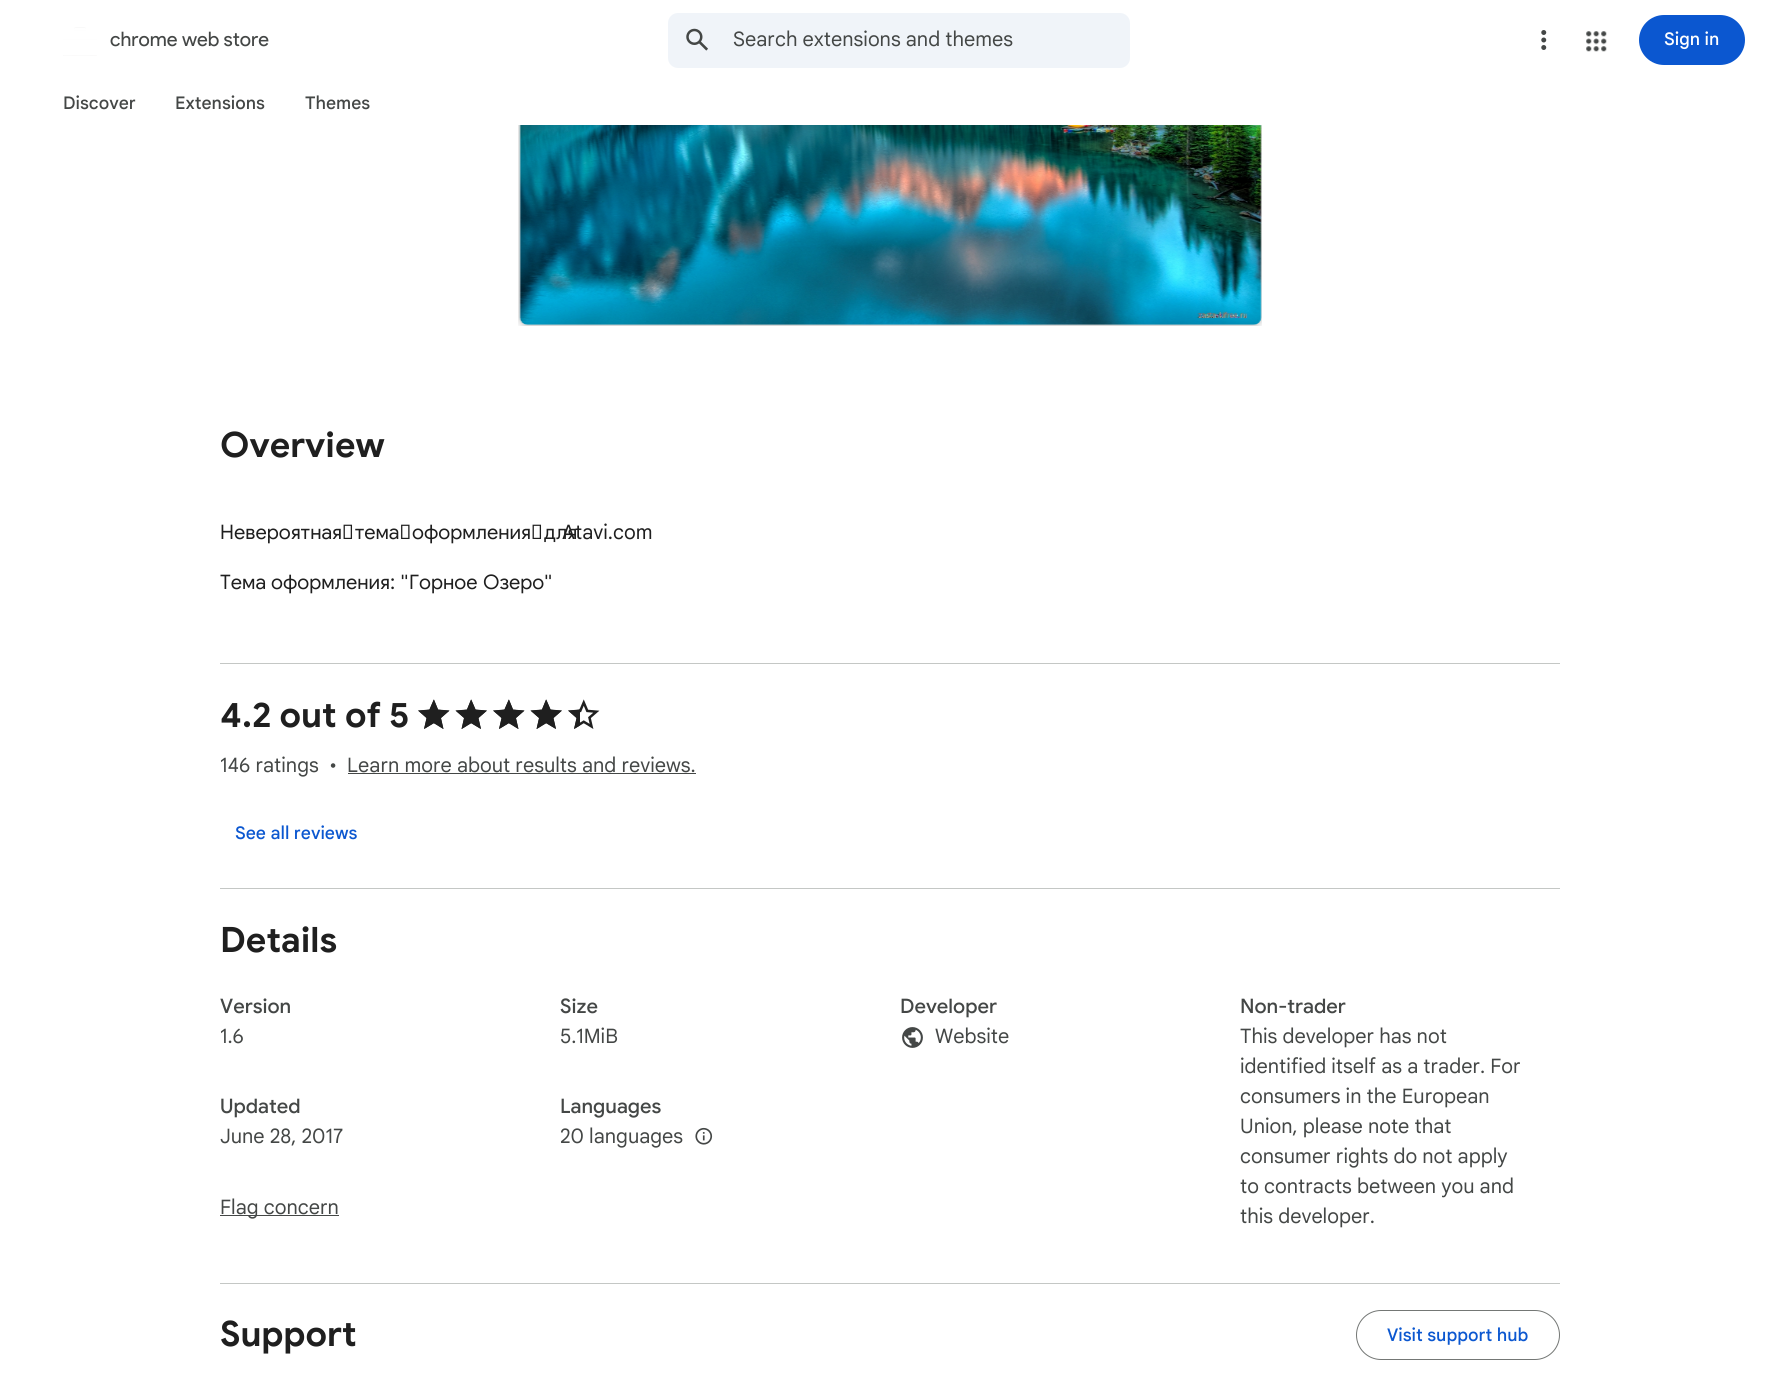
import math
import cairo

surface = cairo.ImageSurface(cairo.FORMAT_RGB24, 1779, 1382)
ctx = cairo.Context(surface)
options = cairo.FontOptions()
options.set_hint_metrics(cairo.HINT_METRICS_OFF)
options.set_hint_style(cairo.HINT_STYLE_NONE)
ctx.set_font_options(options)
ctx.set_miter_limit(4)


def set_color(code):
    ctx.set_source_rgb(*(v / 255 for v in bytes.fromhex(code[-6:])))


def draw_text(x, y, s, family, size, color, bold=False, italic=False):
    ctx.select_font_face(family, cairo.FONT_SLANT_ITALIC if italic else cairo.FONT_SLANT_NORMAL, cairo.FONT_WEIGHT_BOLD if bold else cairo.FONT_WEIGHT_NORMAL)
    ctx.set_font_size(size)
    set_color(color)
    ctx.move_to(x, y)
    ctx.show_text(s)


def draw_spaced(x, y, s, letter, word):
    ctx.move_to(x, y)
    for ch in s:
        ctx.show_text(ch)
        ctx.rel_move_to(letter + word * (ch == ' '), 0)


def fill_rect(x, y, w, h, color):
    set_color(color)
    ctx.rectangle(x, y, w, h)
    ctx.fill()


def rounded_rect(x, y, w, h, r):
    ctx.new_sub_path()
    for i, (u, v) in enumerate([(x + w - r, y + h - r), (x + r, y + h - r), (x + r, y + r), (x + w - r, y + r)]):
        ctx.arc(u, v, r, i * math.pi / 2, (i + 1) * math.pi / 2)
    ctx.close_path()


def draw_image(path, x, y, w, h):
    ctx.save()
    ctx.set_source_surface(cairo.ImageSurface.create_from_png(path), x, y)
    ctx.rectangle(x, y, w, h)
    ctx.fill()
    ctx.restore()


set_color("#ffffff")
ctx.paint()
draw_image("assets/img1.png", 63, 27, 34, 29)
draw_text(110, 46, "chrome web store", "Product Sans", 20, "#444746")
set_color("#f0f4f9")
rounded_rect(668, 13, 462, 55, 10)
ctx.fill()
draw_image("assets/img2.png", 686, 28, 22, 23)
draw_text(733, 46, "Search extensions and themes", "Google Sans", 20, "#444746")
draw_image("assets/img3.png", 1541, 30, 6, 20)
draw_image("assets/img4.png", 1586, 31, 21, 21)
set_color("#0b57d0")
rounded_rect(1639, 15, 106, 50, 25)
ctx.fill()
draw_text(1664, 45, "Sign in", "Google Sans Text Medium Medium", 17.5, "#ffffff")
draw_text(63, 109, "Discover", "Google Sans Text Medium Medium", 17.5, "#444746")
draw_text(175, 109, "Extensions", "Google Sans Text Medium Medium", 17.5, "#444746")
draw_text(305, 109, "Themes", "Google Sans Text Medium Medium", 17.5, "#444746")
draw_image("assets/img5.png", 518, 125, 744, 201)
fill_rect(220, 663, 1340, 1, "#c4c7c5")
draw_text(220, 457, "Overview", "Google Sans", 35, "#1f1f1f", bold=True)
ctx.select_font_face("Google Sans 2")
ctx.set_font_size(20)
draw_spaced(220, 539, "Невероятная тема оформления для", 0, 1)
draw_text(562, 539, "Atavi.com", "Google Sans", 20, "#1f1f1f")
draw_text(220, 589, "Тема", "Google Sans 2", 20, "#1f1f1f")
draw_text(271, 589, "оформления", "Google Sans 2", 20, "#1f1f1f")
draw_text(390, 589, ": \"", "Google Sans", 20, "#1f1f1f")
draw_text(409, 589, "Горное", "Google Sans 2", 20, "#1f1f1f")
draw_text(483, 589, "Озеро", "Google Sans 2", 20, "#1f1f1f")
draw_text(544, 589, "\"", "Google Sans", 20, "#1f1f1f")
fill_rect(220, 888, 1340, 1, "#c4c7c5")
draw_text(220, 727, "4.2 out of 5", "Google Sans", 35, "#1f1f1f", bold=True)
draw_image("assets/img6.png", 418, 699, 32, 30)
draw_image("assets/img7.png", 455, 699, 32, 30)
draw_image("assets/img6.png", 493, 699, 32, 30)
draw_image("assets/img7.png", 530, 699, 32, 30)
draw_image("assets/img6.png", 568, 699, 32, 30)
ctx.new_path()
ctx.move_to(434, 723)
ctx.line_to(443.5, 729)
ctx.line_to(441, 718)
ctx.line_to(449.5, 710.5)
ctx.line_to(438, 709.5)
ctx.line_to(434, 699.5)
ctx.line_to(429.5, 709.5)
ctx.line_to(418, 710.5)
ctx.line_to(426.5, 718)
ctx.line_to(424, 729)
ctx.close_path()
ctx.fill()
ctx.new_path()
ctx.move_to(471, 723)
ctx.line_to(481, 729)
ctx.line_to(478.5, 718)
ctx.line_to(487, 710.5)
ctx.line_to(475.5, 709.5)
ctx.line_to(471, 699.5)
ctx.line_to(467, 709.5)
ctx.line_to(455.5, 710.5)
ctx.line_to(464, 718)
ctx.line_to(461.5, 729)
ctx.close_path()
ctx.fill()
ctx.new_path()
ctx.move_to(509, 723)
ctx.line_to(518.5, 729)
ctx.line_to(516, 718)
ctx.line_to(524.5, 710.5)
ctx.line_to(513, 709.5)
ctx.line_to(509, 699.5)
ctx.line_to(504.5, 709.5)
ctx.line_to(493, 710.5)
ctx.line_to(501.5, 718)
ctx.line_to(499, 729)
ctx.close_path()
ctx.fill()
ctx.new_path()
ctx.move_to(546, 723)
ctx.line_to(556, 729)
ctx.line_to(553.5, 718)
ctx.line_to(562, 710.5)
ctx.line_to(550.5, 709.5)
ctx.line_to(546, 699.5)
ctx.line_to(542, 709.5)
ctx.line_to(530.5, 710.5)
ctx.line_to(539, 718)
ctx.line_to(536.5, 729)
ctx.close_path()
ctx.fill()
ctx.save()
ctx.rectangle(565, 696, 15, 38)
ctx.clip()
ctx.new_path()
ctx.move_to(584, 723)
ctx.line_to(593.5, 729)
ctx.line_to(591, 718)
ctx.line_to(599.5, 710.5)
ctx.line_to(588, 709.5)
ctx.line_to(584, 699.5)
ctx.line_to(579.5, 709.5)
ctx.line_to(568, 710.5)
ctx.line_to(576.5, 718)
ctx.line_to(574, 729)
ctx.close_path()
ctx.fill()
ctx.restore()
draw_text(220, 772, "146 ratings", "Google Sans", 20, "#444746")
draw_text(329, 772, "•", "Google Sans", 20, "#444746")
draw_text(347, 772, "Learn more about results and reviews.", "Google Sans", 20, "#444746")
fill_rect(348, 773, 348, 1, "#444746")
draw_text(235, 839, "See all reviews", "Google Sans Text Medium Medium", 17.5, "#0b57d0")
fill_rect(220, 1283, 1340, 1, "#c4c7c5")
draw_text(220, 952, "Details", "Google Sans", 35, "#1f1f1f", bold=True)
draw_text(220, 1013, "Version", "Google Sans Medium", 20, "#444746")
draw_text(220, 1043, "1.6", "Google Sans", 20, "#444746")
draw_text(560, 1013, "Size", "Google Sans Medium", 20, "#444746")
draw_text(560, 1043, "5.1MiB", "Google Sans", 20, "#444746")
draw_text(900, 1013, "Developer", "Google Sans Medium", 20, "#444746")
draw_image("assets/img8.png", 902, 1027, 21, 21)
draw_text(935, 1043, "Website", "Google Sans", 20, "#444746")
draw_text(1240, 1013, "Non-trader", "Google Sans Medium", 20, "#444746")
draw_text(1240, 1043, "This developer has not", "Google Sans", 20, "#444746")
draw_text(1240, 1073, "identified itself as a trader. For", "Google Sans", 20, "#444746")
draw_text(1240, 1103, "consumers in the European", "Google Sans", 20, "#444746")
draw_text(1240, 1133, "Union, please note that", "Google Sans", 20, "#444746")
draw_text(1240, 1163, "consumer rights do not apply", "Google Sans", 20, "#444746")
draw_text(1240, 1193, "to contracts between you and", "Google Sans", 20, "#444746")
draw_text(1240, 1223, "this developer.", "Google Sans", 20, "#444746")
draw_text(220, 1113, "Updated", "Google Sans Medium", 20, "#444746")
draw_text(220, 1143, "June 28, 2017", "Google Sans", 20, "#444746")
draw_text(560, 1113, "Languages", "Google Sans Medium", 20, "#444746")
draw_text(560, 1143, "20 languages", "Google Sans", 20, "#444746")
draw_image("assets/img9.png", 695, 1127, 18, 18)
fill_rect(220, 1215, 119, 1, "#444746")
draw_text(220, 1214, "Flag concern", "Google Sans", 20, "#444746")
draw_text(220, 1346, "Support", "Google Sans", 35, "#1f1f1f", bold=True)
rounded_rect(1356.5, 1310.5, 203, 49, 24.5)
set_color("#747775")
ctx.set_line_width(1)
ctx.stroke()
draw_text(1387, 1341, "Visit support hub", "Google Sans Text Medium Medium", 17.5, "#0b57d0")
surface.write_to_png("output.png")
